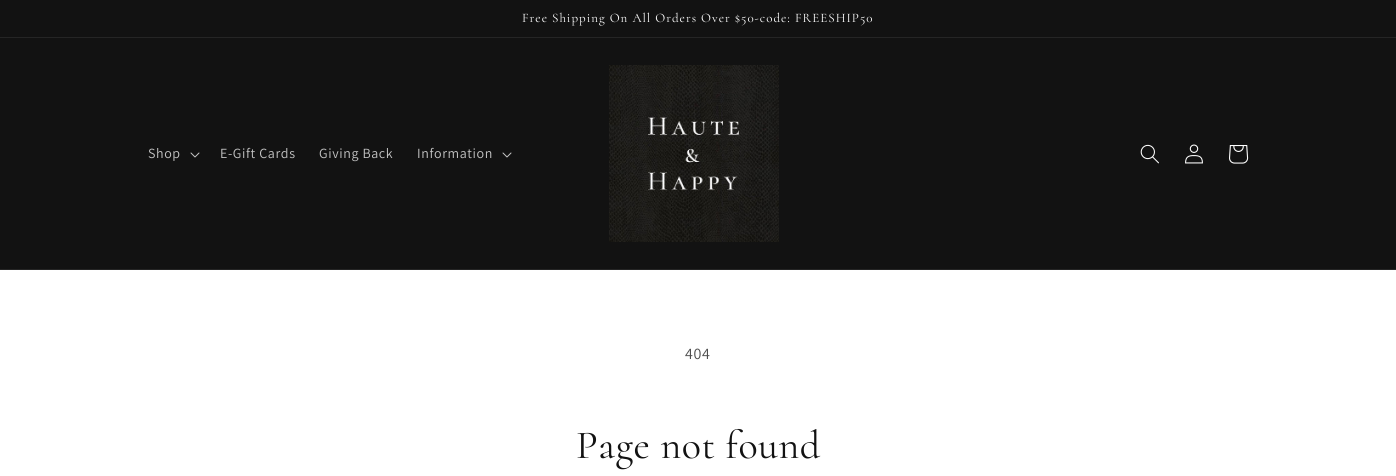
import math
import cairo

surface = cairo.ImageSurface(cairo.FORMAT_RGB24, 1396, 476)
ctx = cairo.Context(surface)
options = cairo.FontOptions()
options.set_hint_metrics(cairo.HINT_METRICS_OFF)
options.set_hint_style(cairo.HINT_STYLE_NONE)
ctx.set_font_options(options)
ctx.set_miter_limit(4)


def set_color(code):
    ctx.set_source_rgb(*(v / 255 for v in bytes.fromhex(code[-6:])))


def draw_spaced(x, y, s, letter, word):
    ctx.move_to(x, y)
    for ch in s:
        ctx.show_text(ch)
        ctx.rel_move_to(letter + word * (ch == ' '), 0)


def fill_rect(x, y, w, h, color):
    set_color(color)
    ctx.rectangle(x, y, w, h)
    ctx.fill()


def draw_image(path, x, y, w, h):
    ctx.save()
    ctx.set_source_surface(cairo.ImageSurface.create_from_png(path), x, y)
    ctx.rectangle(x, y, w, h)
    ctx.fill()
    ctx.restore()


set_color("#ffffff")
ctx.paint()
fill_rect(0, 0, 1396, 37, "#121212")
fill_rect(0, 37, 1396, 1, "#252525")
ctx.select_font_face("Cormorant")
ctx.set_font_size(13)
set_color("#ffffff")
draw_spaced(522, 22, "Free Shipping On All Orders Over $50-code: FREESHIP50", 1, 0)
fill_rect(0, 38, 1396, 231, "#121212")
fill_rect(0, 269, 1396, 1, "#252525")
ctx.select_font_face("Assistant")
ctx.set_font_size(14)
set_color("#c4c4c4")
draw_spaced(148, 158, "Shop", 0.6, 0)
draw_image("assets/img1.png", 190, 152, 10, 6)
draw_spaced(220, 158, "E-Gift Cards", 0.6, 0)
draw_spaced(319, 158, "Giving Back", 0.6, 0)
draw_spaced(417, 158, "Information", 0.6, 0)
draw_image("assets/img1.png", 502, 152, 10, 6)
draw_image("assets/img2.png", 609, 65, 170, 177)
draw_image("assets/img3.png", 1140, 144, 19, 20)
draw_image("assets/img4.png", 1185, 144, 18, 20)
draw_image("assets/img5.png", 1229, 145, 20, 19)
ctx.set_font_size(16)
set_color("#4d4d4d")
draw_spaced(685, 359, "404", 0.6, 0)
ctx.select_font_face("Cormorant")
ctx.set_font_size(40)
set_color("#121212")
draw_spaced(576, 458, "Page not found", 0.6, 0)
surface.write_to_png("output.png")
